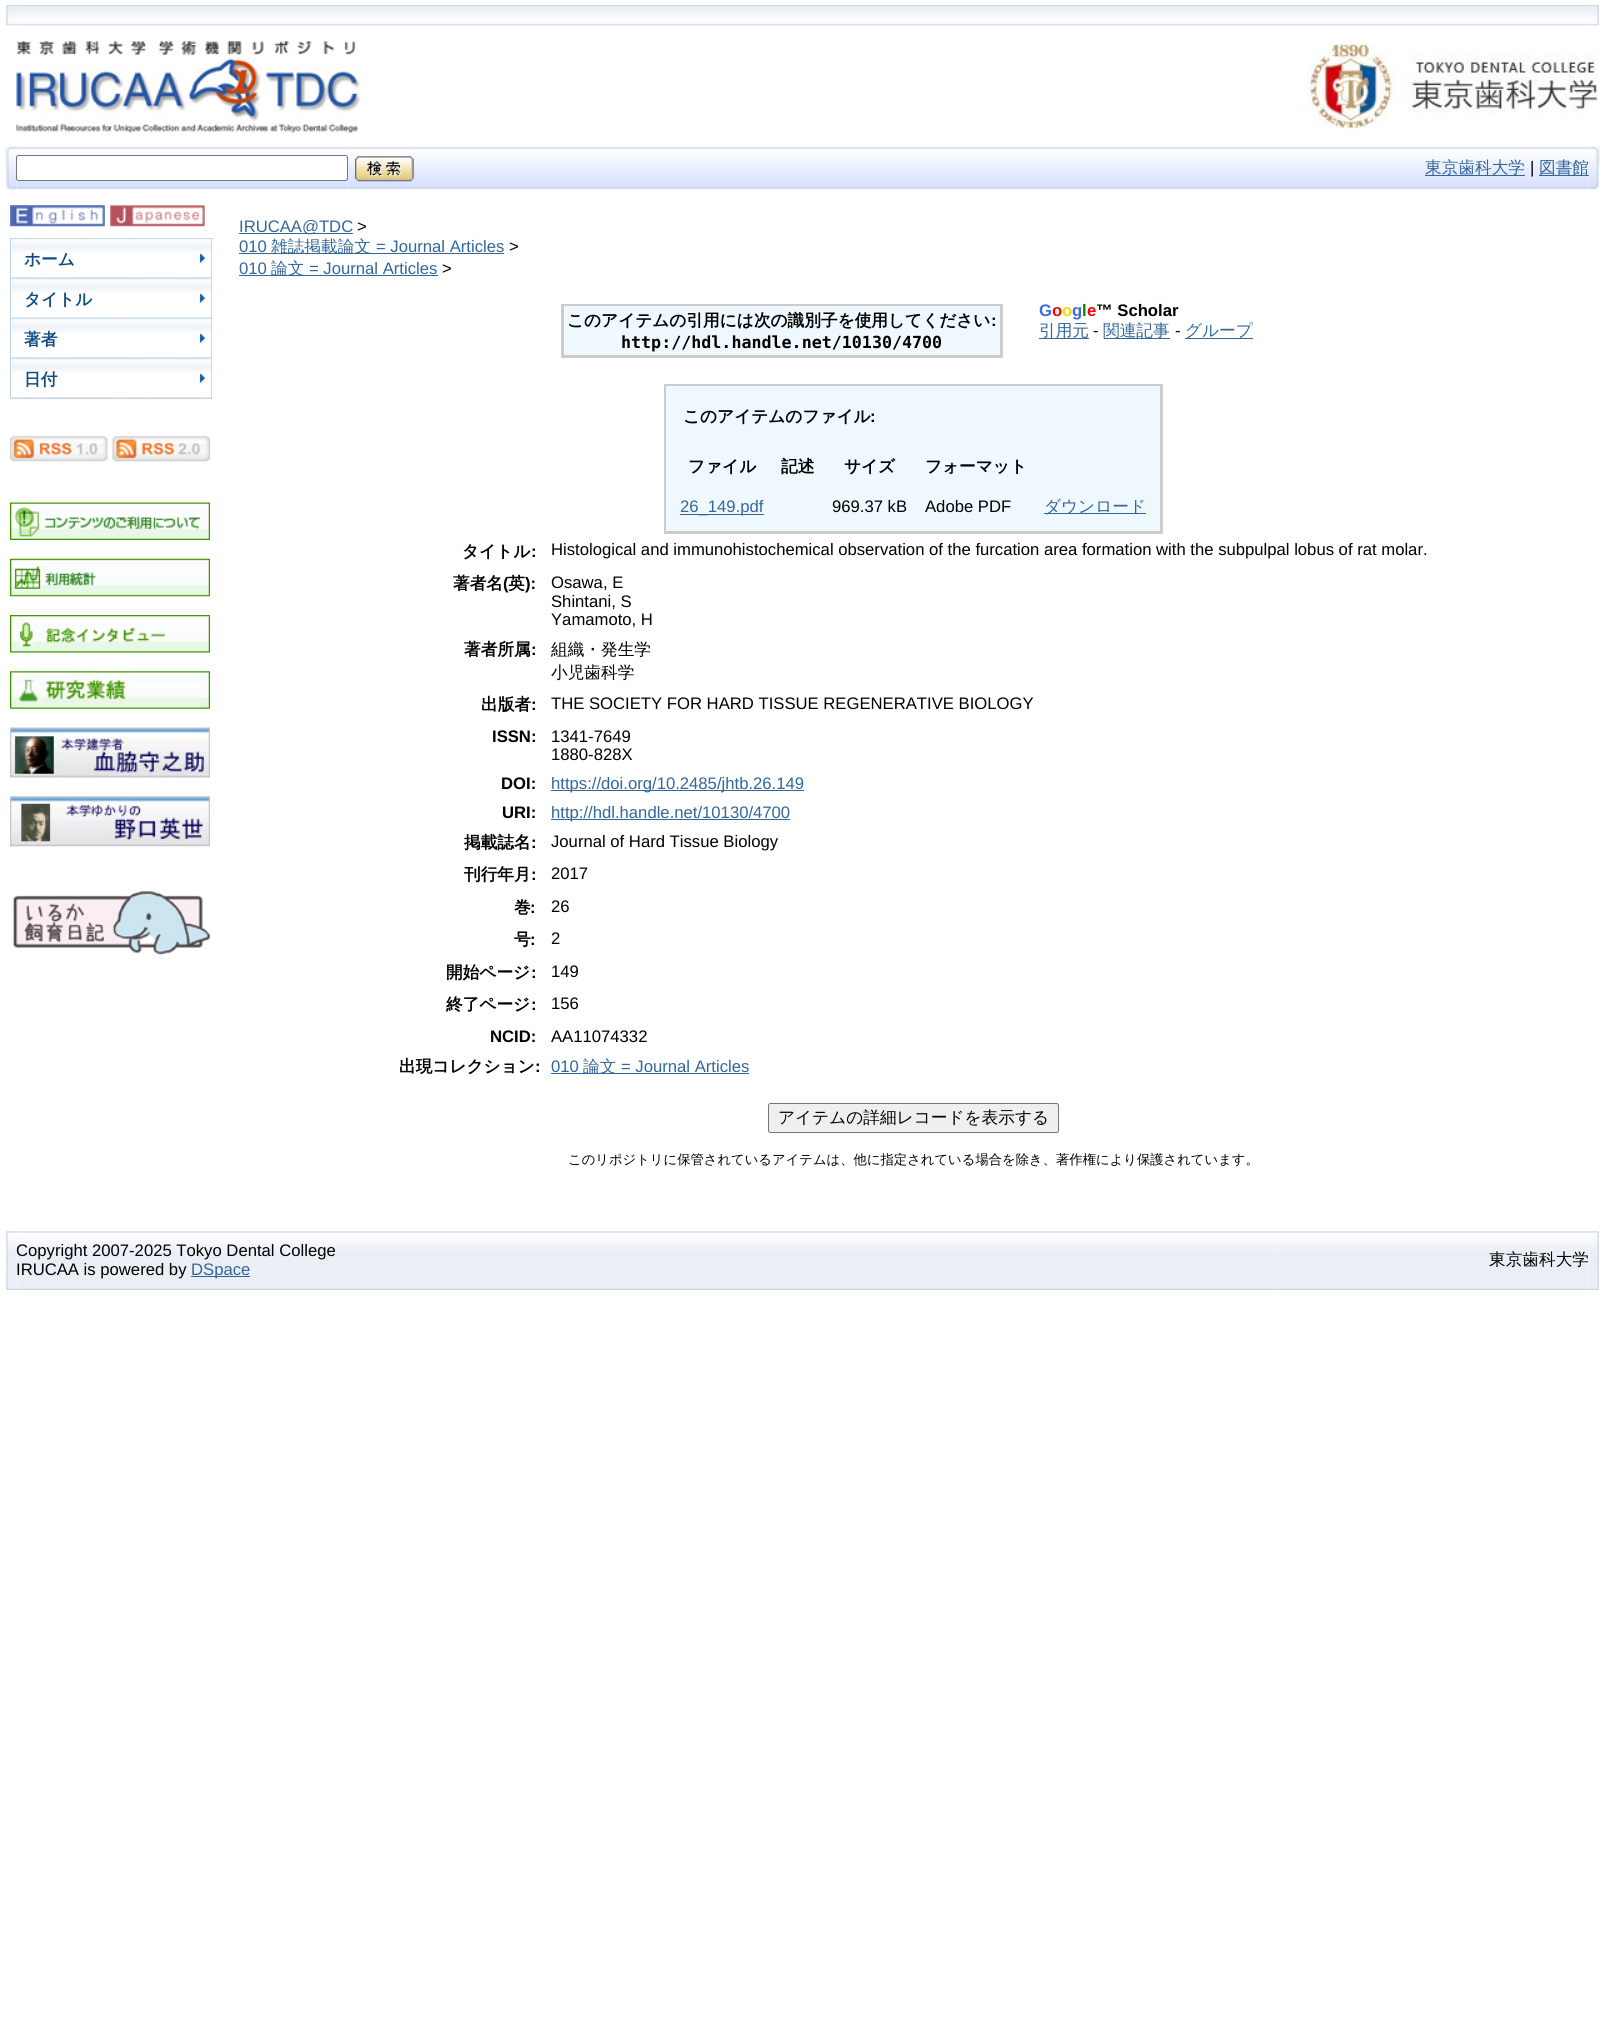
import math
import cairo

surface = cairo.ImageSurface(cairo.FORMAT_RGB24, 1605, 2024)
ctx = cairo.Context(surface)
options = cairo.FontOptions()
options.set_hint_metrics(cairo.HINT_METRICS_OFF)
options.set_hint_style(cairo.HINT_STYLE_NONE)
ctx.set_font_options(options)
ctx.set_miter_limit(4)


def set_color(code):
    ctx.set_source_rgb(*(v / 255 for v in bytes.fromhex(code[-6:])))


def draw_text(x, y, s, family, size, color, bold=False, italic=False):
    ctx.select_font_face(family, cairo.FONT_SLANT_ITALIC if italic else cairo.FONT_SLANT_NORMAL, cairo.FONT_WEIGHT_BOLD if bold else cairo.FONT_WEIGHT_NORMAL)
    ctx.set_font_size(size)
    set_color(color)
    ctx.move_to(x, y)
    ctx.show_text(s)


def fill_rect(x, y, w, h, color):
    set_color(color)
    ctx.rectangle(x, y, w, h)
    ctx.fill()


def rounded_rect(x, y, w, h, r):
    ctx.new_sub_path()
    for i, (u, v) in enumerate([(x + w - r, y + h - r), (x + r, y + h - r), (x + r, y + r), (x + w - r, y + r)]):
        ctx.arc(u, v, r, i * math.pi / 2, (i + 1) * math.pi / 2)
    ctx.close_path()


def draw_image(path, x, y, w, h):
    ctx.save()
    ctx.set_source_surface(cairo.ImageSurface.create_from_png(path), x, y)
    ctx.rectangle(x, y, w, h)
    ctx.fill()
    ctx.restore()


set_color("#ffffff")
ctx.paint()
draw_image("assets/img1.png", 5, 5, 11, 21)
draw_image("assets/img2.png", 16, 5, 1573, 22)
draw_image("assets/img3.png", 1589, 5, 10, 22)
draw_image("assets/img4.png", 15, 41, 347, 92)
draw_image("assets/img5.png", 1307, 43, 291, 86)
draw_image("assets/img6.png", 5, 146, 11, 44)
draw_image("assets/img7.png", 16, 146, 332, 44)
draw_image("assets/img8.png", 347, 146, 8, 44)
set_color("#ffffff")
rounded_rect(16.5, 155.5, 331, 25, 2)
ctx.fill_preserve()
set_color("#767676")
ctx.set_line_width(1)
ctx.stroke()
draw_image("assets/img9.png", 350, 167, 2, 2)
draw_image("assets/img10.png", 355, 146, 59, 44)
draw_image("assets/img11.png", 355, 156, 59, 26)
draw_image("assets/img12.png", 414, 146, 1175, 44)
fill_rect(1425, 175, 100, 1, "#336699")
draw_text(1425, 173, "東京歯科大学", "WenQuanYi Zen Hei Medium", 16.67, "#336699")
draw_text(1530, 173, "|", "Liberation Sans", 16.67, "#000000")
fill_rect(1539, 175, 50, 1, "#336699")
draw_text(1539, 173, "図書館", "WenQuanYi Zen Hei Medium", 16.67, "#336699")
draw_image("assets/img13.png", 1588, 146, 12, 44)
draw_image("assets/img14.png", 10, 205, 95, 22)
draw_image("assets/img15.png", 110, 205, 95, 22)
fill_rect(10, 238, 203, 1, "#bcd2e6")
fill_rect(211, 238, 1, 161, "#bcd2e6")
fill_rect(10, 238, 1, 161, "#bcd2e6")
draw_image("assets/img16.png", 11, 238, 201, 41)
draw_text(24, 265, "ホーム", "WenQuanYi Zen Hei", 16.67, "#104c7f", bold=True)
draw_image("assets/img17.png", 11, 278, 201, 41)
draw_text(24, 305, "タイトル", "WenQuanYi Zen Hei", 16.67, "#104c7f", bold=True)
draw_image("assets/img18.png", 11, 318, 201, 41)
draw_text(24, 345, "著者", "WenQuanYi Zen Hei", 16.67, "#104c7f", bold=True)
draw_image("assets/img18.png", 11, 358, 201, 41)
draw_text(24, 385, "日付", "WenQuanYi Zen Hei", 16.67, "#104c7f", bold=True)
draw_image("assets/img19.png", 10, 436, 98, 26)
draw_image("assets/img20.png", 112, 436, 98, 26)
draw_image("assets/img21.png", 10, 502, 200, 38)
draw_image("assets/img22.png", 10, 558, 200, 39)
draw_image("assets/img23.png", 10, 615, 200, 38)
draw_image("assets/img24.png", 10, 671, 200, 38)
draw_image("assets/img25.png", 10, 727, 200, 51)
draw_image("assets/img26.png", 10, 796, 200, 51)
draw_image("assets/img27.png", 12, 891, 198, 65)
fill_rect(239, 233, 114, 1, "#336699")
draw_text(239, 232, "IRUCAA@TDC", "Liberation Sans", 16.67, "#336699")
draw_text(357, 232, ">", "Liberation Sans", 16.67, "#000000")
draw_text(239, 252, "010", "Liberation Sans", 16.67, "#336699")
fill_rect(239, 253, 265, 1, "#336699")
draw_text(271, 252, "雑誌掲載論文", "WenQuanYi Zen Hei Medium", 16.67, "#336699")
draw_text(376, 252, "= Journal Articles", "Liberation Sans", 16.67, "#336699")
draw_text(509, 252, ">", "Liberation Sans", 16.67, "#000000")
draw_text(239, 274, "010", "Liberation Sans", 16.67, "#336699")
fill_rect(239, 275, 199, 1, "#336699")
draw_text(271, 274, "論文", "WenQuanYi Zen Hei Medium", 16.67, "#336699")
draw_text(309, 274, "= Journal Articles", "Liberation Sans", 16.67, "#336699")
draw_text(442, 274, ">", "Liberation Sans", 16.67, "#000000")
fill_rect(561, 304, 442, 54, "#cccccc")
fill_rect(564, 306, 436, 49, "#f0f8ff")
draw_text(567, 326, "このアイテムの引用には次の識別子を使用してください", "WenQuanYi Zen Hei", 16.67, "#000000", bold=True)
draw_text(991, 326, ":", "Liberation Sans", 16.67, "#000000", bold=True)
draw_text(621, 348, "http://hdl.handle.net/10130/4700", "DejaVu Sans Mono", 16.67, "#000000", bold=True)
draw_text(1039, 316, "G", "Liberation Sans", 16.67, "#4169e1", bold=True)
draw_text(1052, 316, "o", "Liberation Sans", 16.67, "#ff0000", bold=True)
draw_text(1062, 316, "o", "Liberation Sans", 16.67, "#ffd700", bold=True)
draw_text(1072, 316, "g", "Liberation Sans", 16.67, "#4169e1", bold=True)
draw_text(1082, 316, "l", "Liberation Sans", 16.67, "#008000", bold=True)
draw_text(1087, 316, "e", "Liberation Sans", 16.67, "#ff0000", bold=True)
draw_text(1096, 316, "™ Scholar", "Liberation Sans", 16.67, "#000000", bold=True)
draw_text(1039, 336, "引用元", "WenQuanYi Zen Hei Medium", 16.67, "#336699")
fill_rect(1039, 338, 50, 1, "#336699")
draw_text(1093, 336, "-", "Liberation Sans", 16.67, "#000000")
fill_rect(1104, 338, 66, 1, "#336699")
draw_text(1103, 336, "関連記事", "WenQuanYi Zen Hei Medium", 16.67, "#336699")
draw_text(1175, 336, "-", "Liberation Sans", 16.67, "#000000")
fill_rect(1185, 338, 68, 1, "#336699")
draw_text(1185, 336, "グループ", "WenQuanYi Zen Hei Medium", 16.67, "#336699")
fill_rect(664, 384, 499, 150, "#cccccc")
fill_rect(666, 386, 494, 145, "#f0f8ff")
draw_text(683, 422, "このアイテムのファイル", "WenQuanYi Zen Hei", 16.67, "#000000", bold=True)
draw_text(870, 422, ":", "Liberation Sans", 16.67, "#000000", bold=True)
draw_text(688, 472, "ファイル", "WenQuanYi Zen Hei", 16.67, "#000000", bold=True)
draw_text(781, 472, "記述", "WenQuanYi Zen Hei", 16.67, "#000000", bold=True)
draw_text(844, 472, "サイズ", "WenQuanYi Zen Hei", 16.67, "#000000", bold=True)
draw_text(925, 472, "フォーマット", "WenQuanYi Zen Hei", 16.67, "#000000", bold=True)
fill_rect(680, 514, 84, 1, "#336699")
draw_text(680, 512, "26_149.pdf", "Liberation Sans", 16.67, "#336699")
draw_text(832, 512, "969.37 kB", "Liberation Sans", 16.67, "#000000")
draw_text(925, 512, "Adobe PDF", "Liberation Sans", 16.67, "#000000")
fill_rect(1044, 513, 102, 1, "#336699")
draw_text(1044, 512, "ダウンロード", "WenQuanYi Zen Hei Medium", 16.67, "#336699")
draw_text(462, 557, "タイトル", "WenQuanYi Zen Hei", 16.67, "#000000", bold=True)
draw_text(531, 557, ":", "Liberation Sans", 16.67, "#000000", bold=True)
draw_text(551, 555, "Histological and immunohistochemical observation of the furcation area formation with the subpulpal lobus of rat molar.", "Liberation Sans", 16.67, "#000000")
draw_text(453, 589, "著者名", "WenQuanYi Zen Hei", 16.67, "#000000", bold=True)
draw_text(503, 589, "(", "Liberation Sans", 16.67, "#000000", bold=True)
draw_text(508, 589, "英", "WenQuanYi Zen Hei", 16.67, "#000000", bold=True)
draw_text(525, 589, "):", "Liberation Sans", 16.67, "#000000", bold=True)
draw_text(551, 588, "Osawa, E", "Liberation Sans", 16.67, "#000000")
draw_text(551, 607, "Shintani, S", "Liberation Sans", 16.67, "#000000")
draw_text(551, 625, "Yamamoto, H", "Liberation Sans", 16.67, "#000000")
draw_text(464, 655, "著者所属", "WenQuanYi Zen Hei", 16.67, "#000000", bold=True)
draw_text(531, 655, ":", "Liberation Sans", 16.67, "#000000", bold=True)
draw_text(551, 655, "組織・発生学", "WenQuanYi Zen Hei Medium", 16.67, "#000000")
draw_text(551, 678, "小児歯科学", "WenQuanYi Zen Hei Medium", 16.67, "#000000")
draw_text(481, 710, "出版者", "WenQuanYi Zen Hei", 16.67, "#000000", bold=True)
draw_text(531, 710, ":", "Liberation Sans", 16.67, "#000000", bold=True)
draw_text(551, 709, "THE SOCIETY FOR HARD TISSUE REGENERATIVE BIOLOGY", "Liberation Sans", 16.67, "#000000")
draw_text(492, 742, "ISSN:", "Liberation Sans", 16.67, "#000000", bold=True)
draw_text(551, 742, "1341-7649", "Liberation Sans", 16.67, "#000000")
draw_text(551, 760, "1880-828X", "Liberation Sans", 16.67, "#000000")
draw_text(501, 789, "DOI:", "Liberation Sans", 16.67, "#000000", bold=True)
fill_rect(551, 790, 253, 1, "#336699")
draw_text(551, 789, "https://doi.org/10.2485/jhtb.26.149", "Liberation Sans", 16.67, "#336699")
draw_text(502, 818, "URI:", "Liberation Sans", 16.67, "#000000", bold=True)
fill_rect(551, 819, 239, 1, "#336699")
draw_text(551, 818, "http://hdl.handle.net/10130/4700", "Liberation Sans", 16.67, "#336699")
draw_text(464, 848, "掲載誌名", "WenQuanYi Zen Hei", 16.67, "#000000", bold=True)
draw_text(531, 848, ":", "Liberation Sans", 16.67, "#000000", bold=True)
draw_text(551, 847, "Journal of Hard Tissue Biology", "Liberation Sans", 16.67, "#000000")
draw_text(464, 880, "刊行年月", "WenQuanYi Zen Hei", 16.67, "#000000", bold=True)
draw_text(531, 880, ":", "Liberation Sans", 16.67, "#000000", bold=True)
draw_text(551, 879, "2017", "Liberation Sans", 16.67, "#000000")
draw_text(514, 913, "巻", "WenQuanYi Zen Hei", 16.67, "#000000", bold=True)
draw_text(530, 913, ":", "Liberation Sans", 16.67, "#000000", bold=True)
draw_text(551, 912, "26", "Liberation Sans", 16.67, "#000000")
draw_text(514, 945, "号", "WenQuanYi Zen Hei", 16.67, "#000000", bold=True)
draw_text(530, 945, ":", "Liberation Sans", 16.67, "#000000", bold=True)
draw_text(551, 944, "2", "Liberation Sans", 16.67, "#000000")
draw_text(446, 978, "開始ページ", "WenQuanYi Zen Hei", 16.67, "#000000", bold=True)
draw_text(531, 978, ":", "Liberation Sans", 16.67, "#000000", bold=True)
draw_text(551, 977, "149", "Liberation Sans", 16.67, "#000000")
draw_text(446, 1010, "終了ページ", "WenQuanYi Zen Hei", 16.67, "#000000", bold=True)
draw_text(531, 1010, ":", "Liberation Sans", 16.67, "#000000", bold=True)
draw_text(551, 1009, "156", "Liberation Sans", 16.67, "#000000")
draw_text(490, 1042, "NCID:", "Liberation Sans", 16.67, "#000000", bold=True)
draw_text(551, 1042, "AA11074332", "Liberation Sans", 16.67, "#000000")
draw_text(399, 1072, "出現コレクション", "WenQuanYi Zen Hei", 16.67, "#000000", bold=True)
draw_text(535, 1072, ":", "Liberation Sans", 16.67, "#000000", bold=True)
draw_text(551, 1072, "010", "Liberation Sans", 16.67, "#336699")
fill_rect(551, 1073, 198, 1, "#336699")
draw_text(583, 1072, "論文", "WenQuanYi Zen Hei Medium", 16.67, "#336699")
draw_text(621, 1072, "= Journal Articles", "Liberation Sans", 16.67, "#336699")
set_color("#efefef")
rounded_rect(768.5, 1103.5, 290, 29, 2)
ctx.fill_preserve()
set_color("#767676")
ctx.stroke()
draw_text(778, 1123, "アイテムの詳細レコードを表示する", "WenQuanYi Zen Hei Medium", 16.67, "#000000")
draw_text(568, 1164, "このリポジトリに保管されているアイテムは、他に指定されている場合を除き、著作権により保護されています。", "WenQuanYi Zen Hei Medium", 13.33, "#000000")
draw_image("assets/img28.png", 5, 1230, 11, 60)
draw_image("assets/img29.png", 16, 1231, 1258, 59)
draw_text(16, 1256, "Copyright 2007-2025 Tokyo Dental College", "Liberation Sans", 16.67, "#000000")
draw_text(16, 1275, "IRUCAA is powered by", "Liberation Sans", 16.67, "#000000")
fill_rect(191, 1276, 59, 1, "#336699")
draw_text(191, 1275, "DSpace", "Liberation Sans", 16.67, "#336699")
draw_image("assets/img30.png", 1274, 1231, 315, 59)
draw_text(1489, 1265, "東京歯科大学", "WenQuanYi Zen Hei Medium", 16.67, "#000000")
draw_image("assets/img31.png", 1589, 1230, 11, 60)
surface.write_to_png("output.png")
